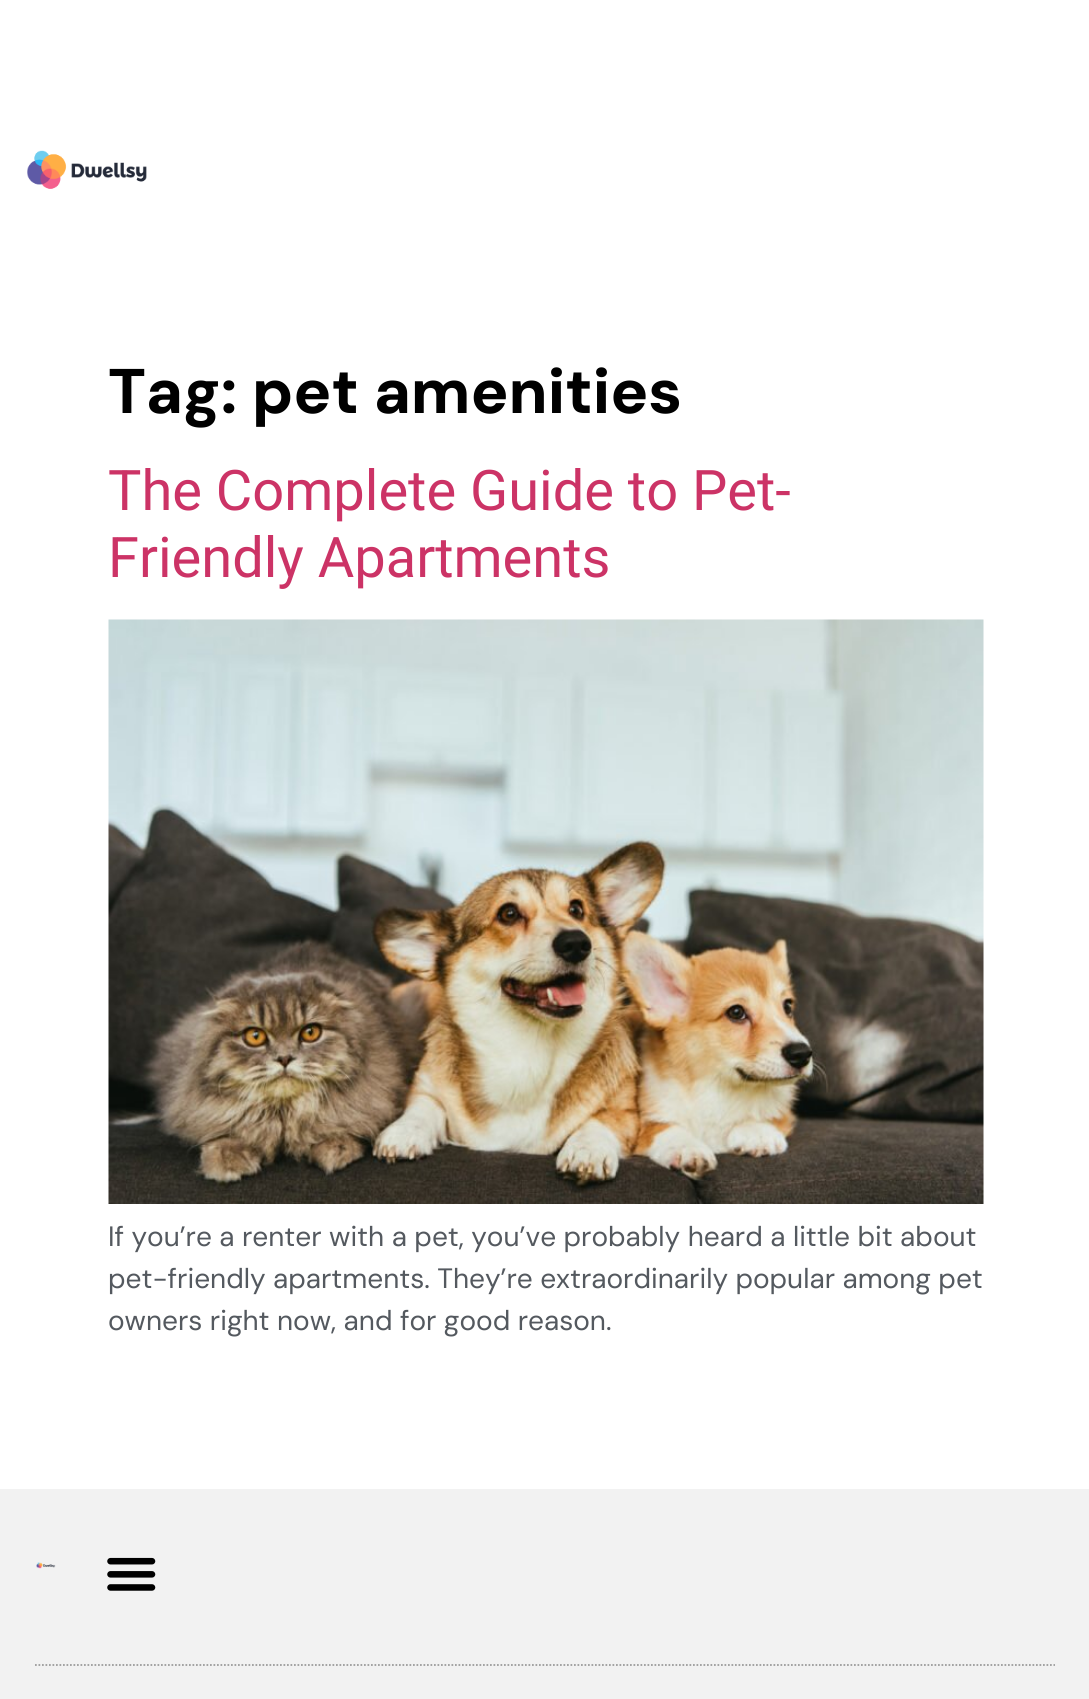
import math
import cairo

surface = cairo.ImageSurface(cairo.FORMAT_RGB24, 1089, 1699)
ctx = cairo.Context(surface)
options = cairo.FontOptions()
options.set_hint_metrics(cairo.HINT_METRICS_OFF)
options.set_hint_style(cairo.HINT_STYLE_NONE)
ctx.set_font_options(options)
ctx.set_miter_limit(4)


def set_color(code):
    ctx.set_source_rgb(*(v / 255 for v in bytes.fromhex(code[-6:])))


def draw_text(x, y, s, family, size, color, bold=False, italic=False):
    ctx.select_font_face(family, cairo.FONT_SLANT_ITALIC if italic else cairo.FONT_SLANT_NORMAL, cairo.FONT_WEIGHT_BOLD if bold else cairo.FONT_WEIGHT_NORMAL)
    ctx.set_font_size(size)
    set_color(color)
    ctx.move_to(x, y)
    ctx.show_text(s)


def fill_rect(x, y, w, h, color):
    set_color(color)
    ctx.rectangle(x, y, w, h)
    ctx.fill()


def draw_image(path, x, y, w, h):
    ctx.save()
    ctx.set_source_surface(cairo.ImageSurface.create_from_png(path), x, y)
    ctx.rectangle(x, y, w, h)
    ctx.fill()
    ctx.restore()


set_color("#ffffff")
ctx.paint()
draw_image("assets/img1.png", 27, 150, 120, 39)
draw_text(108, 413, "Tag: pet amenities", "DM Sans ExtraBold", 63, "#000000")
draw_text(108, 510, "The Complete Guide to Pet-", "Roboto", 56, "#cc3366")
draw_text(108, 577, "Friendly Apartments", "Roboto", 56, "#cc3366")
draw_image("assets/img2.png", 108, 619, 876, 585)
draw_text(108, 1246, "If you’re a renter with a pet, you’ve probably heard a little bit about", "DM Sans", 28, "#54595f")
draw_text(108, 1288, "pet-friendly apartments. They’re extraordinarily popular among pet", "DM Sans", 28, "#54595f")
draw_text(108, 1330, "owners right now, and for good reason.", "DM Sans", 28, "#54595f")
fill_rect(0, 1489, 1089, 210, "#f2f2f2")
ctx.new_path()
ctx.move_to(35, 1665)
ctx.line_to(1055, 1665)
set_color("#9b9b9b")
ctx.set_line_width(1.8)
ctx.set_dash([1.75, 1.75])
ctx.stroke()
draw_image("assets/img3.png", 36, 1562, 20, 7)
draw_image("assets/img4.png", 107, 1557, 49, 34)
surface.write_to_png("output.png")
